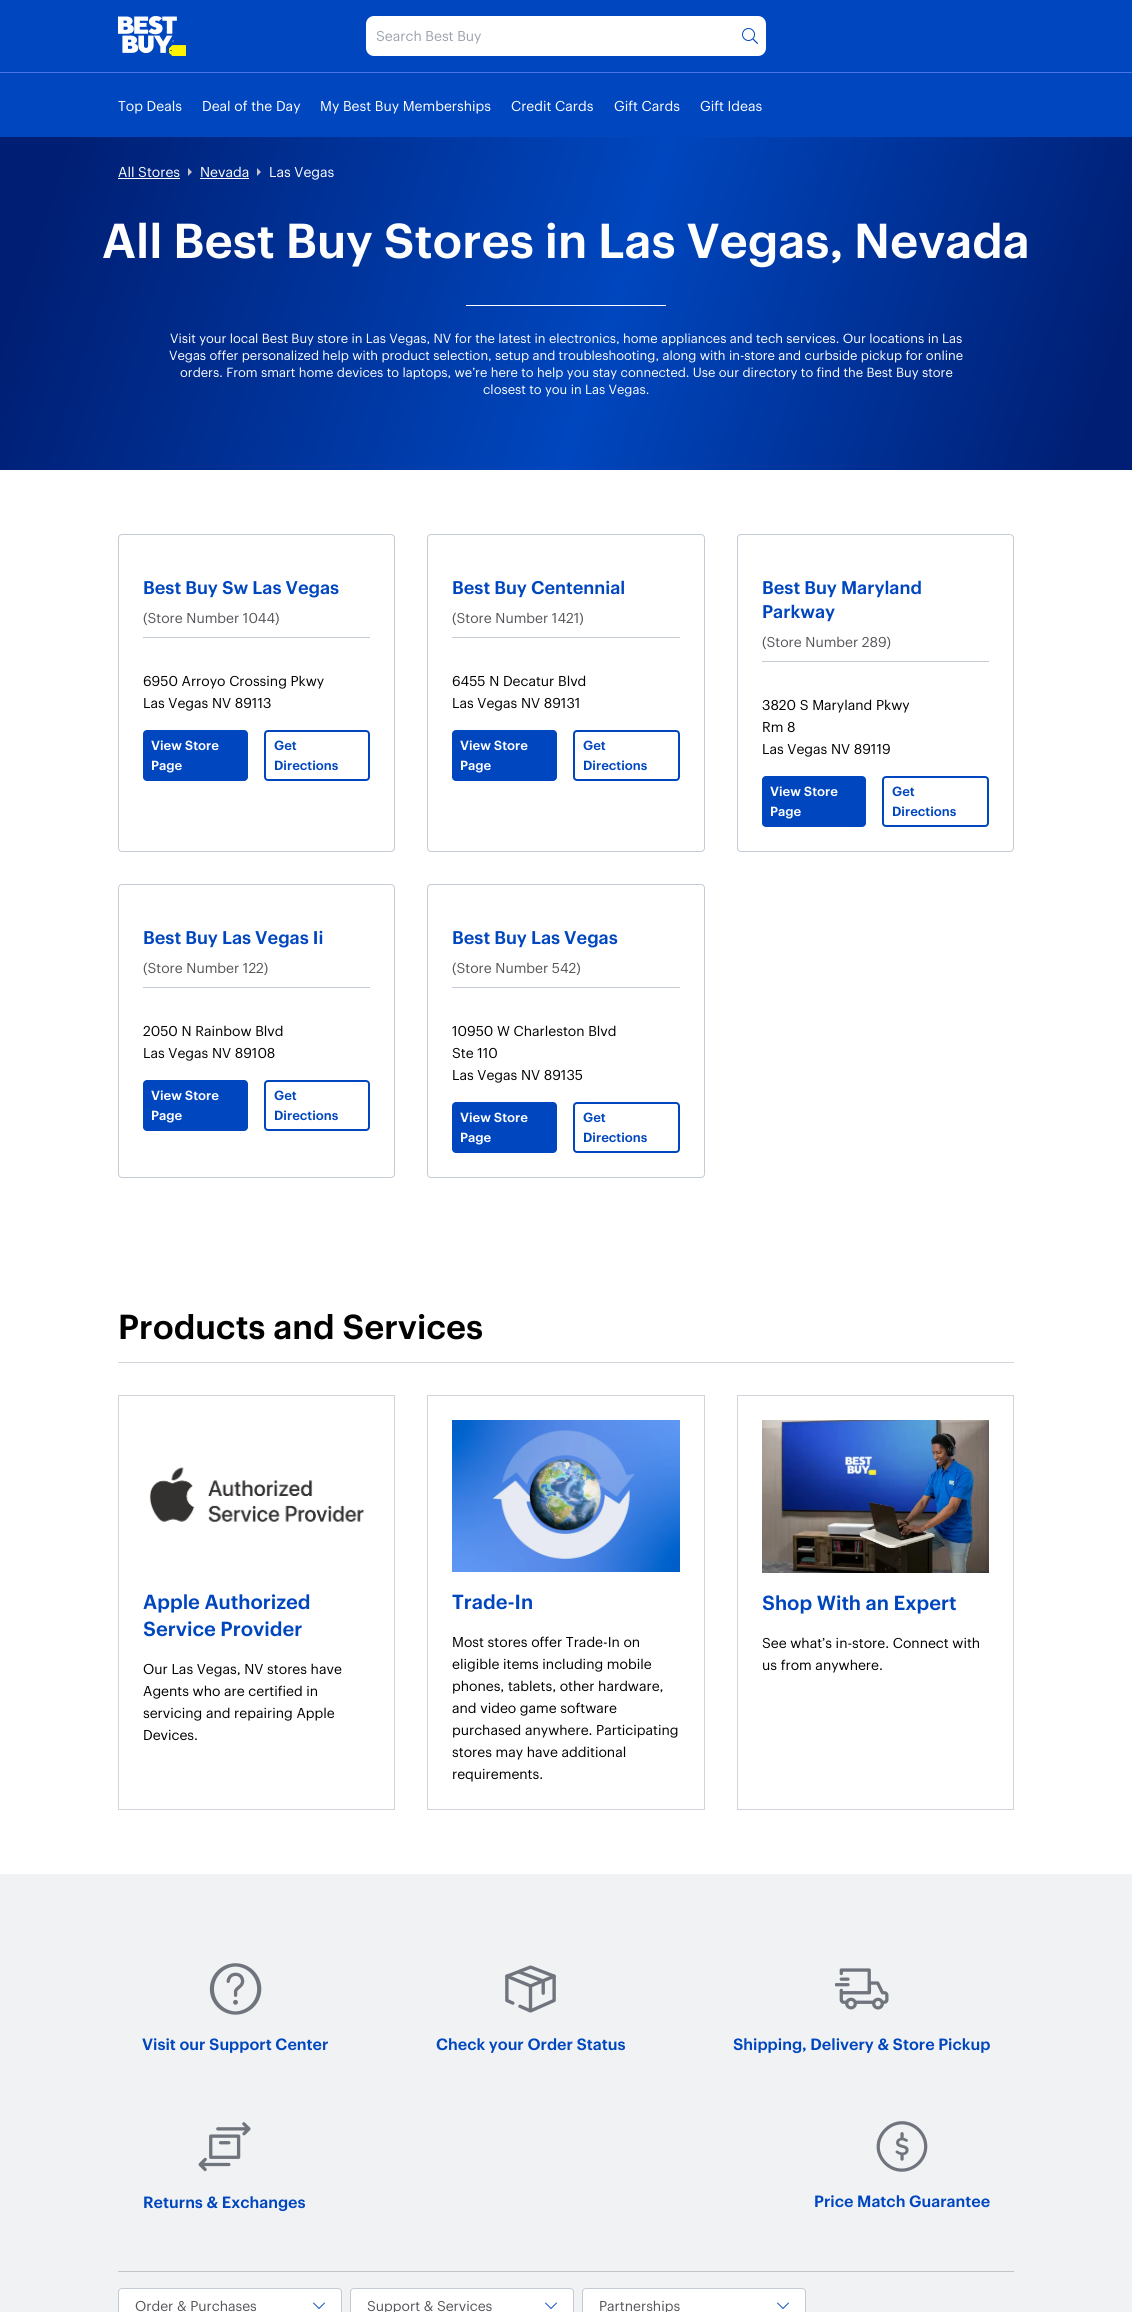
import math
import cairo

surface = cairo.ImageSurface(cairo.FORMAT_RGB24, 1132, 2312)
ctx = cairo.Context(surface)
options = cairo.FontOptions()
options.set_hint_metrics(cairo.HINT_METRICS_OFF)
options.set_hint_style(cairo.HINT_STYLE_NONE)
ctx.set_font_options(options)
ctx.set_miter_limit(4)


def set_color(code):
    ctx.set_source_rgb(*(v / 255 for v in bytes.fromhex(code[-6:])))


def draw_text(x, y, s, family, size, color, bold=False, italic=False):
    ctx.select_font_face(family, cairo.FONT_SLANT_ITALIC if italic else cairo.FONT_SLANT_NORMAL, cairo.FONT_WEIGHT_BOLD if bold else cairo.FONT_WEIGHT_NORMAL)
    ctx.set_font_size(size)
    set_color(color)
    ctx.move_to(x, y)
    ctx.show_text(s)


def fill_rect(x, y, w, h, color):
    set_color(color)
    ctx.rectangle(x, y, w, h)
    ctx.fill()


def rounded_rect(x, y, w, h, r):
    ctx.new_sub_path()
    for i, (u, v) in enumerate([(x + w - r, y + h - r), (x + r, y + h - r), (x + r, y + r), (x + w - r, y + r)]):
        ctx.arc(u, v, r, i * math.pi / 2, (i + 1) * math.pi / 2)
    ctx.close_path()


def draw_image(path, x, y, w, h):
    ctx.save()
    ctx.set_source_surface(cairo.ImageSurface.create_from_png(path), x, y)
    ctx.rectangle(x, y, w, h)
    ctx.fill()
    ctx.restore()


set_color("#ffffff")
ctx.paint()
fill_rect(0, 0, 1132, 137, "#0046be")
fill_rect(0, 72, 1132, 1, "#4976e6")
draw_image("assets/img1.png", 118, 16, 68, 40)
set_color("#ffffff")
rounded_rect(366, 16, 400, 40, 8)
ctx.fill()
draw_text(376, 41, "Search Best Buy", "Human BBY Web", 14, "#9ca3af")
draw_image("assets/img2.png", 742, 28, 16, 16)
draw_text(118, 111, "Top Deals", "Human BBY Web", 14, "#ffffff")
draw_text(202, 111, "Deal of the Day", "Human BBY Web", 14, "#ffffff")
draw_text(320, 111, "My Best Buy Memberships", "Human BBY Web", 14, "#ffffff")
draw_text(511, 111, "Credit Cards", "Human BBY Web", 14, "#ffffff")
draw_text(614, 111, "Gift Cards", "Human BBY Web", 14, "#ffffff")
draw_text(700, 111, "Gift Ideas", "Human BBY Web", 14, "#ffffff")
gradient = cairo.LinearGradient(1127, 486, 5.1, 121)
gradient.add_color_stop_rgba(0.04, 0, 0.118, 0.451, 1)
gradient.add_color_stop_rgba(0.46, 0, 0.275, 0.745, 1)
gradient.add_color_stop_rgba(0.95, 0, 0.118, 0.451, 1)
ctx.set_source(gradient)
ctx.rectangle(0, 137, 1132, 333)
ctx.fill()
draw_text(118, 177, "All Stores", "Human BBY Web", 14, "#ffffff")
fill_rect(118, 178, 62, 1, "#ffffff")
set_color("#c4c4c4")
ctx.set_fill_rule(cairo.FILL_RULE_EVEN_ODD)
ctx.new_path()
ctx.move_to(188, 168)
ctx.line_to(188, 176)
ctx.line_to(192, 172)
ctx.close_path()
ctx.fill()
draw_text(200, 177, "Nevada", "Human BBY Web", 14, "#ffffff")
fill_rect(200, 178, 49, 1, "#ffffff")
set_color("#c4c4c4")
ctx.new_path()
ctx.move_to(257, 168)
ctx.line_to(257, 176)
ctx.line_to(261, 172)
ctx.close_path()
ctx.fill()
draw_text(269, 177, "Las Vegas", "Human BBY Web", 14, "#ffffff")
draw_text(102, 258, "All Best Buy Stores in Las Vegas, Nevada", "Human BBY Web Medium", 48, "#ffffff")
fill_rect(466, 305, 200, 1, "#ffffff")
draw_text(170, 343, "Visit your local Best Buy store in Las Vegas, NV for the latest in electronics, home appliances and tech services. Our locations in Las", "Human BBY Web", 13, "#ffffff")
draw_text(169, 360, "Vegas offer personalized help with product selection, setup and troubleshooting, along with in-store and curbside pickup for online", "Human BBY Web", 13, "#ffffff")
draw_text(180, 377, "orders. From smart home devices to laptops, we’re here to help you stay connected. Use our directory to find the Best Buy store", "Human BBY Web", 13, "#ffffff")
draw_text(483, 394, "closest to you in Las Vegas.", "Human BBY Web", 13, "#ffffff")
rounded_rect(118.5, 534.5, 276, 317, 3.5)
set_color("#c5cbd5")
ctx.set_line_width(1)
ctx.stroke()
draw_text(143, 594, "Best Buy Sw Las Vegas", "Human BBY Web Medium", 18, "#0046be")
fill_rect(143, 637, 227, 1, "#c5cbd5")
draw_text(143, 623, "(Store Number 1044)", "Human BBY Web", 14, "#55555a")
draw_text(143, 686, "6950 Arroyo Crossing Pkwy", "Human BBY Web", 14, "#000000")
draw_text(143, 708, "Las Vegas NV 89113", "Human BBY Web", 14, "#000000")
set_color("#0046be")
rounded_rect(143, 730, 105, 51, 4)
ctx.fill()
draw_text(151, 750, "View Store", "Human BBY Web Medium", 13, "#ffffff")
draw_text(151, 770, "Page", "Human BBY Web Medium", 13, "#ffffff")
rounded_rect(265, 731, 104, 49, 3)
set_color("#0046be")
ctx.set_line_width(2)
ctx.stroke()
draw_text(274, 750, "Get", "Human BBY Web Medium", 13, "#0046be")
draw_text(274, 770, "Directions", "Human BBY Web Medium", 13, "#0046be")
rounded_rect(427.5, 534.5, 277, 317, 3.5)
set_color("#c5cbd5")
ctx.set_line_width(1)
ctx.stroke()
draw_text(452, 594, "Best Buy Centennial", "Human BBY Web Medium", 18, "#0046be")
fill_rect(452, 637, 228, 1, "#c5cbd5")
draw_text(452, 623, "(Store Number 1421)", "Human BBY Web", 14, "#55555a")
draw_text(452, 686, "6455 N Decatur Blvd", "Human BBY Web", 14, "#000000")
draw_text(452, 708, "Las Vegas NV 89131", "Human BBY Web", 14, "#000000")
set_color("#0046be")
rounded_rect(452, 730, 105, 51, 4)
ctx.fill()
draw_text(460, 750, "View Store", "Human BBY Web Medium", 13, "#ffffff")
draw_text(460, 770, "Page", "Human BBY Web Medium", 13, "#ffffff")
rounded_rect(574, 731, 105, 49, 3)
set_color("#0046be")
ctx.set_line_width(2)
ctx.stroke()
draw_text(583, 750, "Get", "Human BBY Web Medium", 13, "#0046be")
draw_text(583, 770, "Directions", "Human BBY Web Medium", 13, "#0046be")
rounded_rect(737.5, 534.5, 276, 317, 3.5)
set_color("#c5cbd5")
ctx.set_line_width(1)
ctx.stroke()
draw_text(762, 594, "Best Buy Maryland", "Human BBY Web Medium", 18, "#0046be")
draw_text(762, 618, "Parkway", "Human BBY Web Medium", 18, "#0046be")
fill_rect(762, 661, 227, 1, "#c5cbd5")
draw_text(762, 647, "(Store Number 289)", "Human BBY Web", 14, "#55555a")
draw_text(762, 710, "3820 S Maryland Pkwy", "Human BBY Web", 14, "#000000")
draw_text(762, 732, "Rm 8", "Human BBY Web", 14, "#000000")
draw_text(762, 754, "Las Vegas NV 89119", "Human BBY Web", 14, "#000000")
set_color("#0046be")
rounded_rect(762, 776, 104, 51, 4)
ctx.fill()
draw_text(770, 796, "View Store", "Human BBY Web Medium", 13, "#ffffff")
draw_text(770, 816, "Page", "Human BBY Web Medium", 13, "#ffffff")
rounded_rect(883, 777, 105, 49, 3)
set_color("#0046be")
ctx.set_line_width(2)
ctx.stroke()
draw_text(892, 796, "Get", "Human BBY Web Medium", 13, "#0046be")
draw_text(892, 816, "Directions", "Human BBY Web Medium", 13, "#0046be")
rounded_rect(118.5, 884.5, 276, 293, 3.5)
set_color("#c5cbd5")
ctx.set_line_width(1)
ctx.stroke()
draw_text(143, 944, "Best Buy Las Vegas Ii", "Human BBY Web Medium", 18, "#0046be")
fill_rect(143, 987, 227, 1, "#c5cbd5")
draw_text(143, 973, "(Store Number 122)", "Human BBY Web", 14, "#55555a")
draw_text(143, 1036, "2050 N Rainbow Blvd", "Human BBY Web", 14, "#000000")
draw_text(143, 1058, "Las Vegas NV 89108", "Human BBY Web", 14, "#000000")
set_color("#0046be")
rounded_rect(143, 1080, 105, 51, 4)
ctx.fill()
draw_text(151, 1100, "View Store", "Human BBY Web Medium", 13, "#ffffff")
draw_text(151, 1120, "Page", "Human BBY Web Medium", 13, "#ffffff")
rounded_rect(265, 1081, 104, 49, 3)
set_color("#0046be")
ctx.set_line_width(2)
ctx.stroke()
draw_text(274, 1100, "Get", "Human BBY Web Medium", 13, "#0046be")
draw_text(274, 1120, "Directions", "Human BBY Web Medium", 13, "#0046be")
rounded_rect(427.5, 884.5, 277, 293, 3.5)
set_color("#c5cbd5")
ctx.set_line_width(1)
ctx.stroke()
draw_text(452, 944, "Best Buy Las Vegas", "Human BBY Web Medium", 18, "#0046be")
fill_rect(452, 987, 228, 1, "#c5cbd5")
draw_text(452, 973, "(Store Number 542)", "Human BBY Web", 14, "#55555a")
draw_text(452, 1036, "10950 W Charleston Blvd", "Human BBY Web", 14, "#000000")
draw_text(452, 1058, "Ste 110", "Human BBY Web", 14, "#000000")
draw_text(452, 1080, "Las Vegas NV 89135", "Human BBY Web", 14, "#000000")
set_color("#0046be")
rounded_rect(452, 1102, 105, 51, 4)
ctx.fill()
draw_text(460, 1122, "View Store", "Human BBY Web Medium", 13, "#ffffff")
draw_text(460, 1142, "Page", "Human BBY Web Medium", 13, "#ffffff")
rounded_rect(574, 1103, 105, 49, 3)
set_color("#0046be")
ctx.set_line_width(2)
ctx.stroke()
draw_text(583, 1122, "Get", "Human BBY Web Medium", 13, "#0046be")
draw_text(583, 1142, "Directions", "Human BBY Web Medium", 13, "#0046be")
fill_rect(118, 1362, 896, 1, "#d1d5db")
draw_text(118, 1339, "Products and Services", "Human BBY Web Medium", 34, "#000000")
ctx.rectangle(118.5, 1395.5, 276, 414)
set_color("#d1d5db")
ctx.set_line_width(1)
ctx.stroke()
draw_image("assets/img3.png", 149, 1467, 216, 56)
draw_text(143, 1609, "Apple Authorized", "Human BBY Web Medium", 20, "#0046be")
draw_text(143, 1636, "Service Provider", "Human BBY Web Medium", 20, "#0046be")
draw_text(143, 1674, "Our Las Vegas, NV stores have", "Human BBY Web", 14, "#000000")
draw_text(143, 1696, "Agents who are certified in", "Human BBY Web", 14, "#000000")
draw_text(143, 1718, "servicing and repairing Apple", "Human BBY Web", 14, "#000000")
draw_text(143, 1740, "Devices.", "Human BBY Web", 14, "#000000")
ctx.rectangle(427.5, 1395.5, 277, 414)
set_color("#d1d5db")
ctx.stroke()
draw_image("assets/img4.png", 452, 1420, 228, 152)
draw_text(452, 1609, "Trade-In", "Human BBY Web Medium", 20, "#0046be")
draw_text(452, 1647, "Most stores offer Trade-In on", "Human BBY Web", 14, "#000000")
draw_text(452, 1669, "eligible items including mobile", "Human BBY Web", 14, "#000000")
draw_text(452, 1691, "phones, tablets, other hardware,", "Human BBY Web", 14, "#000000")
draw_text(452, 1713, "and video game software", "Human BBY Web", 14, "#000000")
draw_text(452, 1735, "purchased anywhere. Participating", "Human BBY Web", 14, "#000000")
draw_text(452, 1757, "stores may have additional", "Human BBY Web", 14, "#000000")
draw_text(452, 1779, "requirements.", "Human BBY Web", 14, "#000000")
ctx.rectangle(737.5, 1395.5, 276, 414)
set_color("#d1d5db")
ctx.stroke()
draw_image("assets/img5.png", 762, 1420, 227, 153)
draw_text(762, 1610, "Shop With an Expert", "Human BBY Web Medium", 20, "#0046be")
draw_text(762, 1648, "See what’s in-store. Connect with", "Human BBY Web", 14, "#000000")
draw_text(762, 1670, "us from anywhere.", "Human BBY Web", 14, "#000000")
fill_rect(0, 1874, 1132, 438, "#f0f2f4")
draw_image("assets/img6.png", 209, 1963, 53, 52)
draw_text(142, 2050, "Visit our Support Center", "Human BBY Web Medium", 16, "#0046be")
draw_image("assets/img7.png", 505, 1965, 51, 48)
draw_text(436, 2050, "Check your Order Status", "Human BBY Web Medium", 16, "#0046be")
draw_image("assets/img8.png", 835, 1968, 54, 42)
draw_text(733, 2050, "Shipping, Delivery & Store Pickup", "Human BBY Web Medium", 16, "#0046be")
draw_image("assets/img9.png", 198, 2122, 53, 50)
draw_text(143, 2208, "Returns & Exchanges", "Human BBY Web Medium", 16, "#0046be")
draw_image("assets/img10.png", 876, 2121, 52, 51)
draw_text(814, 2207, "Price Match Guarantee", "Human BBY Web Medium", 16, "#0046be")
fill_rect(118, 2271, 896, 1, "#c4c4c4")
set_color("#ffffff")
rounded_rect(118.5, 2288.5, 223, 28, 3.5)
ctx.fill_preserve()
set_color("#c5cbd5")
ctx.stroke()
draw_text(135, 2311, "Order & Purchases", "Human BBY Web", 14, "#55555a")
draw_image("assets/img11.png", 313, 2302, 12, 7)
set_color("#ffffff")
rounded_rect(350.5, 2288.5, 223, 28, 3.5)
ctx.fill_preserve()
set_color("#c5cbd5")
ctx.stroke()
draw_text(367, 2311, "Support & Services", "Human BBY Web", 14, "#55555a")
draw_image("assets/img11.png", 545, 2302, 12, 7)
set_color("#ffffff")
rounded_rect(582.5, 2288.5, 223, 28, 3.5)
ctx.fill_preserve()
set_color("#c5cbd5")
ctx.stroke()
draw_text(599, 2311, "Partnerships", "Human BBY Web", 14, "#55555a")
draw_image("assets/img11.png", 777, 2302, 12, 7)
surface.write_to_png("output.png")
